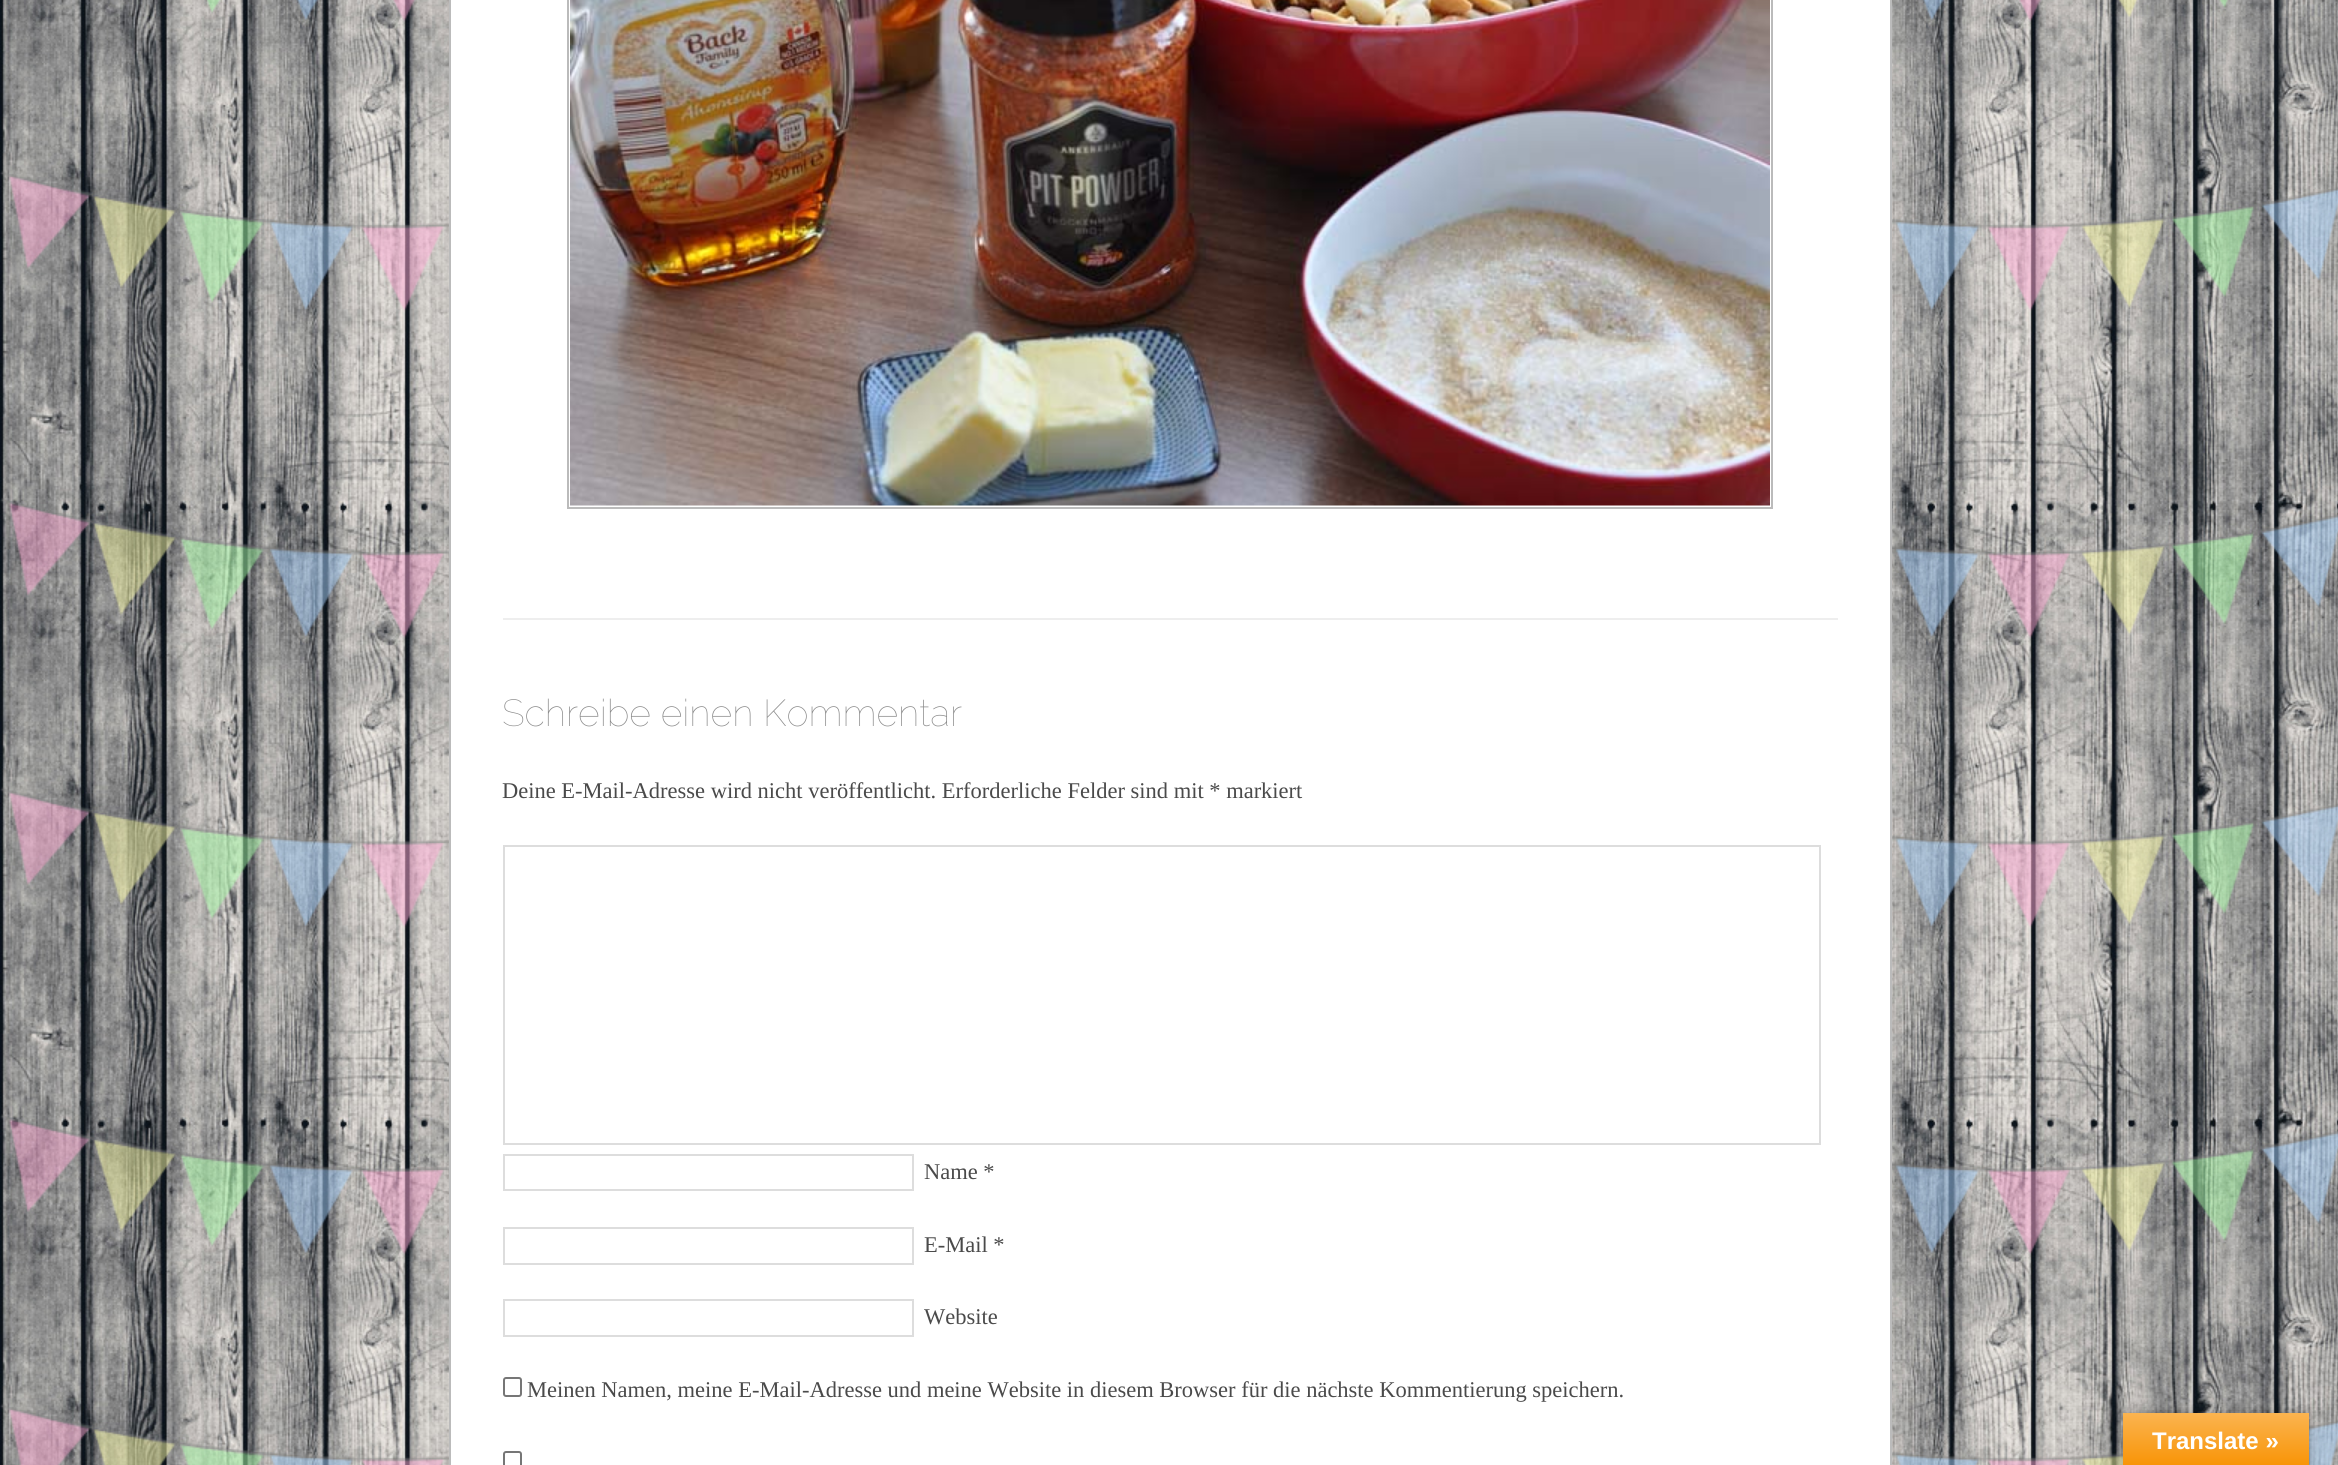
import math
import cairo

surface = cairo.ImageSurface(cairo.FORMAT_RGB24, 2338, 1465)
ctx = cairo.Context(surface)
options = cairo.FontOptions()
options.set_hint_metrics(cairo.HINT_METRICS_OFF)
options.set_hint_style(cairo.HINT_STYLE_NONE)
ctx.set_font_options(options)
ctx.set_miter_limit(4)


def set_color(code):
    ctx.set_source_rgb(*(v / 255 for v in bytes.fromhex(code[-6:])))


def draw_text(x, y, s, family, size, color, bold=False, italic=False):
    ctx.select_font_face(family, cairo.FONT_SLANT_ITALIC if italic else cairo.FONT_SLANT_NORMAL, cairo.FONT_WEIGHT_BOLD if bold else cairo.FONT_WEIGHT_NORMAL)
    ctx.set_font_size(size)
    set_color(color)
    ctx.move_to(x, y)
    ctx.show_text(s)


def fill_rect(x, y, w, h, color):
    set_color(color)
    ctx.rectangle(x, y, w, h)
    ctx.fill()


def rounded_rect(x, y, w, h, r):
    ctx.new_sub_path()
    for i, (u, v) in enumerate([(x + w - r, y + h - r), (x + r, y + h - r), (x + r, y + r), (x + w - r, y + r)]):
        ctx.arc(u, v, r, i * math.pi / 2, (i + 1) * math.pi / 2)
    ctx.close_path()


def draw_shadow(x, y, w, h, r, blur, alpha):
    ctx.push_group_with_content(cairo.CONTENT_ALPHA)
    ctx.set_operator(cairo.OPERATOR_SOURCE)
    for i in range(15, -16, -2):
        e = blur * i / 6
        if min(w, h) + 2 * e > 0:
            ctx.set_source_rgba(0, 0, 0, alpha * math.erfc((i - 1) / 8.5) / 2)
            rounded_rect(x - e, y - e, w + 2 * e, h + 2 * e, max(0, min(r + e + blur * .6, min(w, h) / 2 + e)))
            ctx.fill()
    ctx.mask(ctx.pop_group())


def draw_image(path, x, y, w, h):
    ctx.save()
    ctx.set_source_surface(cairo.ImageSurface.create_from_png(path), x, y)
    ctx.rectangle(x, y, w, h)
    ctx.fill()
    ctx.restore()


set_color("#ffffff")
ctx.paint()
draw_image("assets/img1.png", 0, 0, 2338, 1465)
set_color("#ffffff")
ctx.rectangle(450, -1, 1441, 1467)
ctx.fill_preserve()
set_color("#bbbbbb")
ctx.stroke()
ctx.rectangle(568, -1, 1204, 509)
ctx.stroke()
draw_image("assets/img2.png", 570, 0, 1200, 506)
fill_rect(503, 618, 1335, 2, "#eeeeee")
draw_text(502, 726, "Schreibe einen Kommentar", "Raleway Thin", 37.5, "#8a8a8a")
draw_text(502, 798, "Deine E-Mail-Adresse wird nicht veröffentlicht. Erforderliche Felder sind mit * markiert", "Liberation Serif", 22.5, "#4a4a4a")
ctx.rectangle(504, 846, 1316, 298)
set_color("#dddddd")
ctx.stroke()
ctx.rectangle(504, 1155, 409, 35)
ctx.stroke()
draw_text(924, 1179, "Name *", "Liberation Serif", 22.5, "#4a4a4a")
ctx.rectangle(504, 1228, 409, 36)
set_color("#dddddd")
ctx.stroke()
draw_text(924, 1252, "E-Mail *", "Liberation Serif", 22.5, "#4a4a4a")
ctx.rectangle(504, 1300, 409, 36)
set_color("#dddddd")
ctx.stroke()
draw_text(924, 1324, "Website", "Liberation Serif", 22.5, "#4a4a4a")
rounded_rect(504, 1378, 17, 18, 2)
set_color("#767676")
ctx.stroke()
draw_text(527, 1397, "Meinen Namen, meine E-Mail-Adresse und meine Website in diesem Browser für die nächste Kommentierung speichern.", "Liberation Serif", 22.5, "#4a4a4a")
rounded_rect(504, 1452, 17, 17, 2)
set_color("#767676")
ctx.stroke()
set_color("#000000")
draw_shadow(2123, 1413, 186, 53, 0, 7, 0.3)
gradient = cairo.LinearGradient(2216, 1413, 2216, 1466)
gradient.add_color_stop_rgba(0, 0.984, 0.706, 0.314, 1)
gradient.add_color_stop_rgba(1, 0.973, 0.58, 0.024, 1)
ctx.set_source(gradient)
ctx.rectangle(2123, 1413, 186, 52)
ctx.fill()
draw_text(2152, 1449, "Translate »", "Liberation Sans", 24, "#ffffff", bold=True)
surface.write_to_png("output.png")
